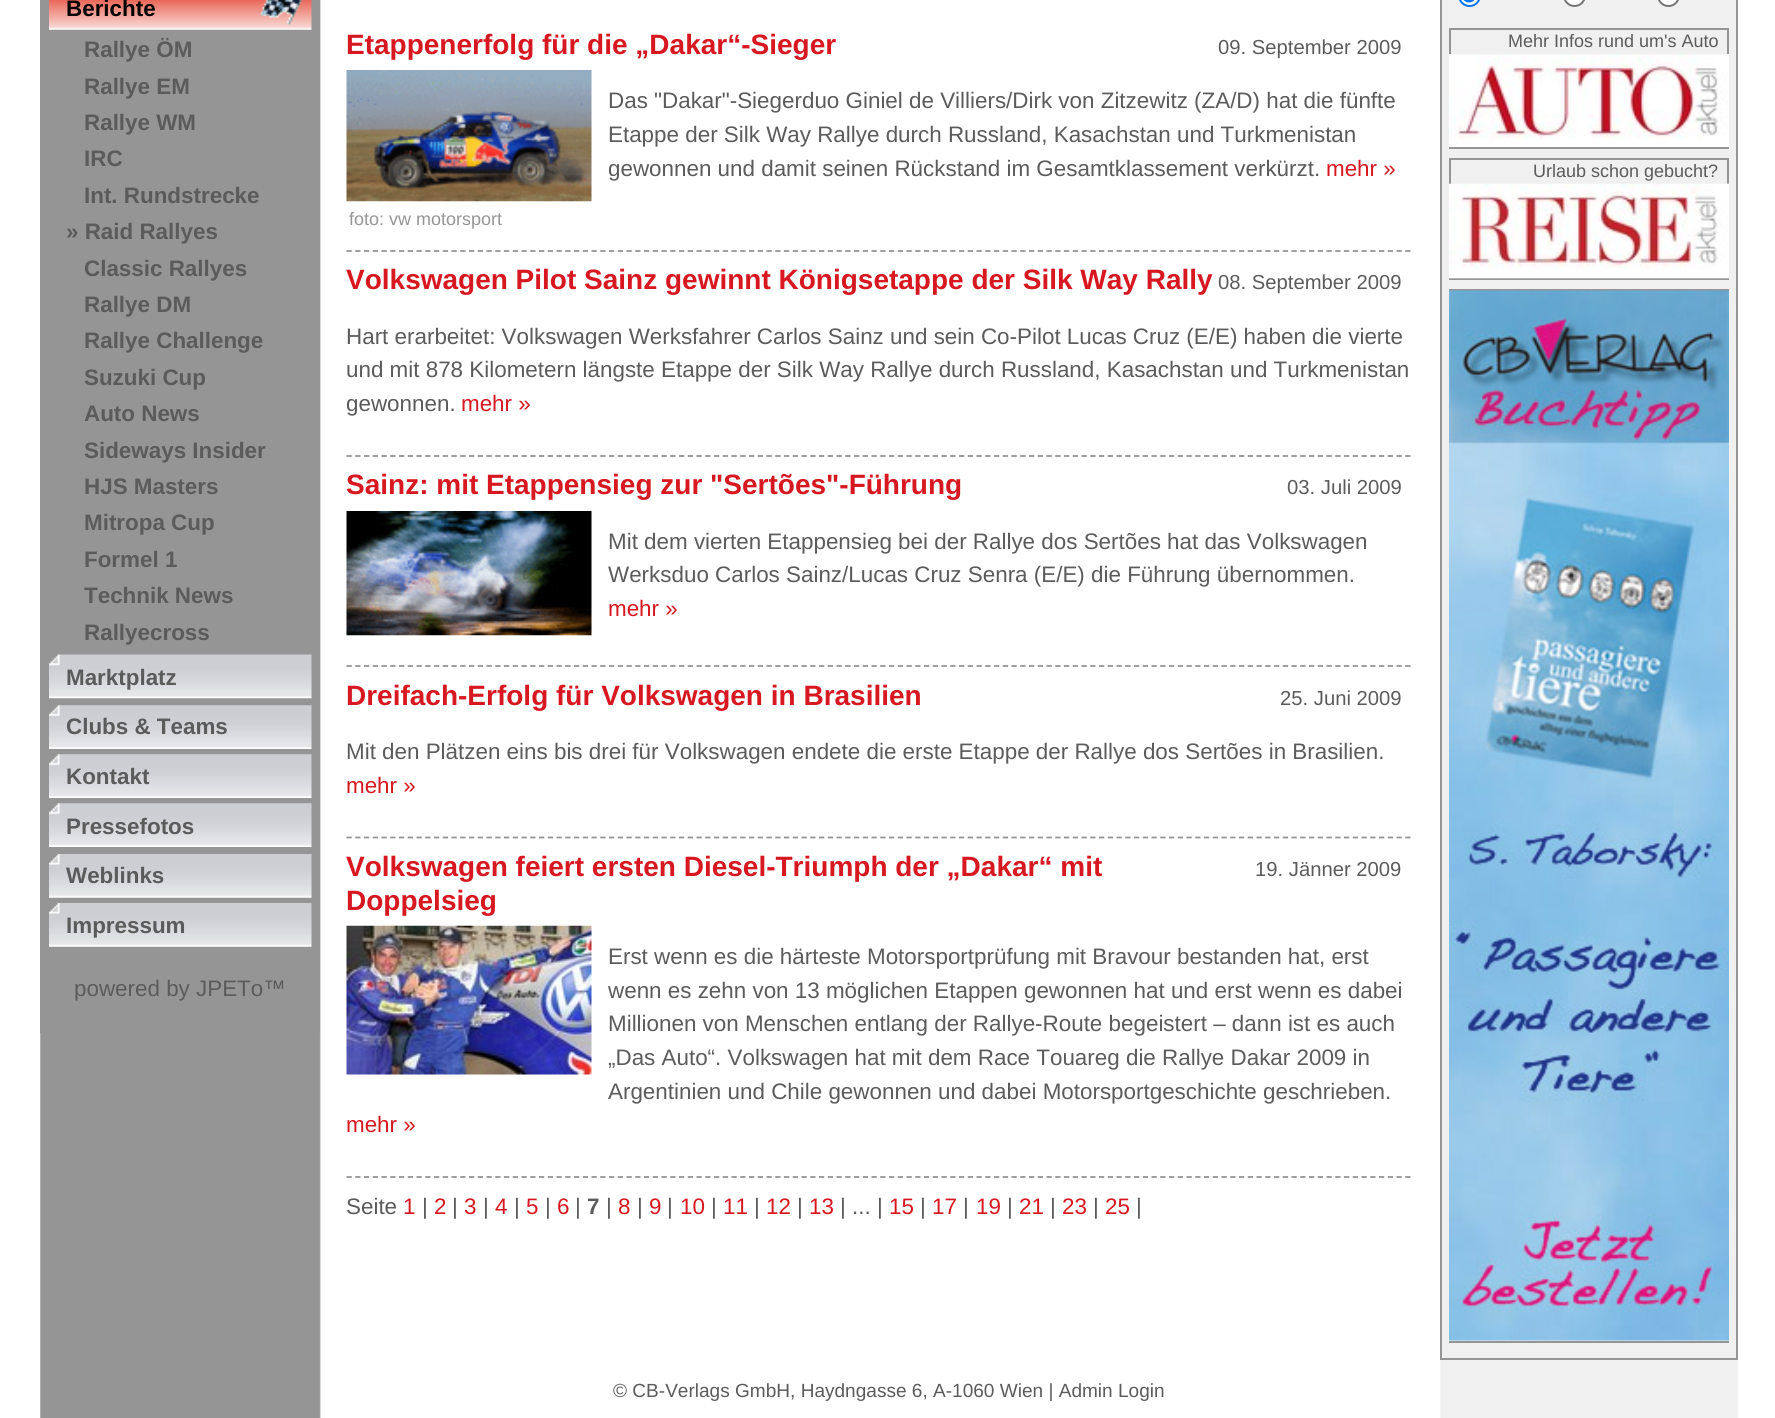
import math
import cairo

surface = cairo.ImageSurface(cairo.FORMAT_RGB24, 1775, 1418)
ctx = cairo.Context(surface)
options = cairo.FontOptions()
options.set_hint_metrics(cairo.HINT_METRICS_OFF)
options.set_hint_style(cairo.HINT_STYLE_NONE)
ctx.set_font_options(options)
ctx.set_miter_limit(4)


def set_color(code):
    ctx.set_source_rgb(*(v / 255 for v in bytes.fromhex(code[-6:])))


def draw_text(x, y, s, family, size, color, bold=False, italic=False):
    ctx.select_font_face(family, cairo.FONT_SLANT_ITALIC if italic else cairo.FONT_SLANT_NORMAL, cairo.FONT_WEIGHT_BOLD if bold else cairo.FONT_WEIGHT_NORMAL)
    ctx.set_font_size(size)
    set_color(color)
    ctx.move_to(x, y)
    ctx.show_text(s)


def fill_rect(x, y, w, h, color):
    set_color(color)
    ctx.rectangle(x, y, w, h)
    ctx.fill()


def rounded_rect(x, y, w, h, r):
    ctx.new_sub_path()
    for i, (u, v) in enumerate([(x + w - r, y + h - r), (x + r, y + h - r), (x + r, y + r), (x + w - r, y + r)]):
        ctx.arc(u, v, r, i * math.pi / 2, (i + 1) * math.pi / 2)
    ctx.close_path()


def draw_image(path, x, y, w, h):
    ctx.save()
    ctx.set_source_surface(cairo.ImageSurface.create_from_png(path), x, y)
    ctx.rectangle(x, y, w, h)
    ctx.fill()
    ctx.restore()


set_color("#ffffff")
ctx.paint()
draw_image("assets/img1.png", 40, 0, 1698, 1418)
fill_rect(40, 0, 280, 1033, "#959595")
draw_image("assets/img2.png", 49, 0, 263, 30)
draw_text(66, 16, "Berichte", "Liberation Sans", 22.4, "#000000", bold=True)
draw_text(84, 57, "Rallye ÖM", "Liberation Sans", 22.4, "#5b5b5b", bold=True)
draw_text(84, 94, "Rallye EM", "Liberation Sans", 22.4, "#5b5b5b", bold=True)
draw_text(84, 130, "Rallye WM", "Liberation Sans", 22.4, "#5b5b5b", bold=True)
draw_text(84, 166, "IRC", "Liberation Sans", 22.4, "#5b5b5b", bold=True)
draw_text(84, 203, "Int. Rundstrecke", "Liberation Sans", 22.4, "#5b5b5b", bold=True)
draw_text(66, 239, "» Raid Rallyes", "Liberation Sans", 22.4, "#5b5b5b", bold=True)
draw_text(84, 276, "Classic Rallyes", "Liberation Sans", 22.4, "#5b5b5b", bold=True)
draw_text(84, 312, "Rallye DM", "Liberation Sans", 22.4, "#5b5b5b", bold=True)
draw_text(84, 348, "Rallye Challenge", "Liberation Sans", 22.4, "#5b5b5b", bold=True)
draw_text(84, 385, "Suzuki Cup", "Liberation Sans", 22.4, "#5b5b5b", bold=True)
draw_text(84, 421, "Auto News", "Liberation Sans", 22.4, "#5b5b5b", bold=True)
draw_text(84, 458, "Sideways Insider", "Liberation Sans", 22.4, "#5b5b5b", bold=True)
draw_text(84, 494, "HJS Masters", "Liberation Sans", 22.4, "#5b5b5b", bold=True)
draw_text(84, 530, "Mitropa Cup", "Liberation Sans", 22.4, "#5b5b5b", bold=True)
draw_text(84, 567, "Formel 1", "Liberation Sans", 22.4, "#5b5b5b", bold=True)
draw_text(84, 603, "Technik News", "Liberation Sans", 22.4, "#5b5b5b", bold=True)
draw_text(84, 640, "Rallyecross", "Liberation Sans", 22.4, "#5b5b5b", bold=True)
draw_image("assets/img3.png", 49, 654, 263, 45)
draw_text(66, 685, "Marktplatz", "Liberation Sans", 22.4, "#5b5b5b", bold=True)
draw_image("assets/img4.png", 49, 705, 263, 44)
draw_text(66, 734, "Clubs & Teams", "Liberation Sans", 22.4, "#5b5b5b", bold=True)
draw_image("assets/img4.png", 49, 754, 263, 44)
draw_text(66, 784, "Kontakt", "Liberation Sans", 22.4, "#5b5b5b", bold=True)
draw_image("assets/img4.png", 49, 803, 263, 44)
draw_text(66, 834, "Pressefotos", "Liberation Sans", 22.4, "#5b5b5b", bold=True)
draw_image("assets/img5.png", 49, 854, 263, 44)
draw_text(66, 883, "Weblinks", "Liberation Sans", 22.4, "#5b5b5b", bold=True)
draw_image("assets/img5.png", 49, 903, 263, 44)
draw_text(66, 933, "Impressum", "Liberation Sans", 22.4, "#5b5b5b", bold=True)
draw_text(74, 996, "powered by JPETo™", "Liberation Sans", 22.4, "#5b5b5b")
draw_text(346, 54, "Etappenerfolg für die „Dakar“-Sieger", "Liberation Sans", 28, "#d71820", bold=True)
draw_text(1218, 54, "09. September 2009", "Liberation Sans", 20.25, "#5b5b5b")
draw_text(608, 108, "Das \"Dakar\"-Siegerduo Giniel de Villiers/Dirk von Zitzewitz (ZA/D) hat die fünfte", "Liberation Sans", 22.4, "#5b5b5b")
draw_text(608, 142, "Etappe der Silk Way Rallye durch Russland, Kasachstan und Turkmenistan", "Liberation Sans", 22.4, "#5b5b5b")
draw_text(608, 176, "gewonnen und damit seinen Rückstand im Gesamtklassement verkürzt.", "Liberation Sans", 22.4, "#5b5b5b")
draw_text(1326, 176, "mehr »", "Liberation Sans", 22.4, "#d71820")
draw_image("assets/img6.png", 346, 70, 246, 132)
draw_text(349, 225, "foto: vw motorsport", "Liberation Sans", 18, "#959595")
ctx.new_path()
ctx.move_to(346.5, 251)
ctx.line_to(1410.5, 251)
ctx.set_line_width(1.8)
ctx.set_dash([5.25, 3.5])
ctx.stroke()
draw_text(346, 289, "Volkswagen Pilot Sainz gewinnt Königsetappe der Silk Way Rally", "Liberation Sans", 28, "#d71820", bold=True)
draw_text(1218, 289, "08. September 2009", "Liberation Sans", 20.25, "#5b5b5b")
draw_text(346, 344, "Hart erarbeitet: Volkswagen Werksfahrer Carlos Sainz und sein Co-Pilot Lucas Cruz (E/E) haben die vierte", "Liberation Sans", 22.4, "#5b5b5b")
draw_text(346, 377, "und mit 878 Kilometern längste Etappe der Silk Way Rallye durch Russland, Kasachstan und Turkmenistan", "Liberation Sans", 22.4, "#5b5b5b")
draw_text(346, 411, "gewonnen.", "Liberation Sans", 22.4, "#5b5b5b")
draw_text(461, 411, "mehr »", "Liberation Sans", 22.4, "#d71820")
ctx.new_path()
ctx.move_to(346.5, 456)
ctx.line_to(1410.5, 456)
set_color("#959595")
ctx.stroke()
draw_text(346, 494, "Sainz: mit Etappensieg zur \"Sertões\"-Führung", "Liberation Sans", 28, "#d71820", bold=True)
draw_text(1287, 494, "03. Juli 2009", "Liberation Sans", 20.25, "#5b5b5b")
draw_image("assets/img7.png", 346, 511, 246, 125)
draw_text(608, 549, "Mit dem vierten Etappensieg bei der Rallye dos Sertões hat das Volkswagen", "Liberation Sans", 22.4, "#5b5b5b")
draw_text(608, 582, "Werksduo Carlos Sainz/Lucas Cruz Senra (E/E) die Führung übernommen.", "Liberation Sans", 22.4, "#5b5b5b")
draw_text(608, 616, "mehr »", "Liberation Sans", 22.4, "#d71820")
ctx.new_path()
ctx.move_to(346.5, 666)
ctx.line_to(1410.5, 666)
set_color("#959595")
ctx.stroke()
draw_text(346, 705, "Dreifach-Erfolg für Volkswagen in Brasilien", "Liberation Sans", 28, "#d71820", bold=True)
draw_text(1280, 705, "25. Juni 2009", "Liberation Sans", 20.25, "#5b5b5b")
draw_text(346, 759, "Mit den Plätzen eins bis drei für Volkswagen endete die erste Etappe der Rallye dos Sertões in Brasilien.", "Liberation Sans", 22.4, "#5b5b5b")
draw_text(346, 793, "mehr »", "Liberation Sans", 22.4, "#d71820")
ctx.new_path()
ctx.move_to(346.5, 837.5)
ctx.line_to(1410.5, 837.5)
set_color("#959595")
ctx.stroke()
draw_text(346, 876, "Volkswagen feiert ersten Diesel-Triumph der „Dakar“ mit", "Liberation Sans", 28, "#d71820", bold=True)
draw_text(346, 910, "Doppelsieg", "Liberation Sans", 28, "#d71820", bold=True)
draw_text(1255, 876, "19. Jänner 2009", "Liberation Sans", 20.25, "#5b5b5b")
draw_image("assets/img8.png", 346, 925, 246, 150)
draw_text(608, 964, "Erst wenn es die härteste Motorsportprüfung mit Bravour bestanden hat, erst", "Liberation Sans", 22.4, "#5b5b5b")
draw_text(608, 998, "wenn es zehn von 13 möglichen Etappen gewonnen hat und erst wenn es dabei", "Liberation Sans", 22.4, "#5b5b5b")
draw_text(608, 1031, "Millionen von Menschen entlang der Rallye-Route begeistert – dann ist es auch", "Liberation Sans", 22.4, "#5b5b5b")
draw_text(608, 1065, "„Das Auto“. Volkswagen hat mit dem Race Touareg die Rallye Dakar 2009 in", "Liberation Sans", 22.4, "#5b5b5b")
draw_text(608, 1099, "Argentinien und Chile gewonnen und dabei Motorsportgeschichte geschrieben.", "Liberation Sans", 22.4, "#5b5b5b")
draw_text(346, 1132, "mehr »", "Liberation Sans", 22.4, "#d71820")
ctx.new_path()
ctx.move_to(346.5, 1177)
ctx.line_to(1410.5, 1177)
set_color("#959595")
ctx.stroke()
draw_text(346, 1214, "Seite", "Liberation Sans", 22.4, "#5b5b5b")
draw_text(403, 1214, "1", "Liberation Sans", 22.4, "#d71820")
draw_text(422, 1214, "|", "Liberation Sans", 22.4, "#5b5b5b")
draw_text(434, 1214, "2", "Liberation Sans", 22.4, "#d71820")
draw_text(452, 1214, "|", "Liberation Sans", 22.4, "#5b5b5b")
draw_text(464, 1214, "3", "Liberation Sans", 22.4, "#d71820")
draw_text(483, 1214, "|", "Liberation Sans", 22.4, "#5b5b5b")
draw_text(495, 1214, "4", "Liberation Sans", 22.4, "#d71820")
draw_text(514, 1214, "|", "Liberation Sans", 22.4, "#5b5b5b")
draw_text(526, 1214, "5", "Liberation Sans", 22.4, "#d71820")
draw_text(545, 1214, "|", "Liberation Sans", 22.4, "#5b5b5b")
draw_text(557, 1214, "6", "Liberation Sans", 22.4, "#d71820")
draw_text(575, 1214, "|", "Liberation Sans", 22.4, "#5b5b5b")
draw_text(587, 1214, "7", "Liberation Sans", 22.4, "#5b5b5b", bold=True)
draw_text(606, 1214, "|", "Liberation Sans", 22.4, "#5b5b5b")
draw_text(618, 1214, "8", "Liberation Sans", 22.4, "#d71820")
draw_text(637, 1214, "|", "Liberation Sans", 22.4, "#5b5b5b")
draw_text(649, 1214, "9", "Liberation Sans", 22.4, "#d71820")
draw_text(667, 1214, "|", "Liberation Sans", 22.4, "#5b5b5b")
draw_text(680, 1214, "10", "Liberation Sans", 22.4, "#d71820")
draw_text(711, 1214, "|", "Liberation Sans", 22.4, "#5b5b5b")
draw_text(723, 1214, "11", "Liberation Sans", 22.4, "#d71820")
draw_text(754, 1214, "|", "Liberation Sans", 22.4, "#5b5b5b")
draw_text(766, 1214, "12", "Liberation Sans", 22.4, "#d71820")
draw_text(797, 1214, "|", "Liberation Sans", 22.4, "#5b5b5b")
draw_text(809, 1214, "13", "Liberation Sans", 22.4, "#d71820")
draw_text(840, 1214, "| ... |", "Liberation Sans", 22.4, "#5b5b5b")
draw_text(889, 1214, "15", "Liberation Sans", 22.4, "#d71820")
draw_text(920, 1214, "|", "Liberation Sans", 22.4, "#5b5b5b")
draw_text(932, 1214, "17", "Liberation Sans", 22.4, "#d71820")
draw_text(963, 1214, "|", "Liberation Sans", 22.4, "#5b5b5b")
draw_text(976, 1214, "19", "Liberation Sans", 22.4, "#d71820")
draw_text(1007, 1214, "|", "Liberation Sans", 22.4, "#5b5b5b")
draw_text(1019, 1214, "21", "Liberation Sans", 22.4, "#d71820")
draw_text(1050, 1214, "|", "Liberation Sans", 22.4, "#5b5b5b")
draw_text(1062, 1214, "23", "Liberation Sans", 22.4, "#d71820")
draw_text(1093, 1214, "|", "Liberation Sans", 22.4, "#5b5b5b")
draw_text(1105, 1214, "25", "Liberation Sans", 22.4, "#d71820")
draw_text(1136, 1214, "|", "Liberation Sans", 22.4, "#5b5b5b")
ctx.rectangle(1441, -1, 296, 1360)
set_color("#959595")
ctx.set_line_width(2)
ctx.set_dash([])
ctx.stroke()
set_color("#ffffff")
rounded_rect(1459, -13, 21, 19, 10.5)
ctx.fill_preserve()
set_color("#0075ff")
ctx.stroke()
ctx.arc(1469, -4.5, 7, 0, 2 * math.pi)
ctx.fill()
set_color("#ffffff")
rounded_rect(1564, -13, 21, 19, 10.5)
ctx.fill_preserve()
set_color("#767676")
ctx.stroke()
set_color("#ffffff")
rounded_rect(1658, -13, 21, 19, 10.5)
ctx.fill_preserve()
set_color("#767676")
ctx.stroke()
fill_rect(1449, 147, 280, 2, "#959595")
fill_rect(1449, 28, 280, 2, "#959595")
fill_rect(1727, 28, 2, 26, "#959595")
fill_rect(1449, 28, 2, 26, "#959595")
draw_text(1508, 47, "Mehr Infos rund um's Auto", "Liberation Sans", 18, "#5b5b5b")
draw_image("assets/img9.png", 1449, 54, 280, 93)
fill_rect(1449, 278, 280, 2, "#959595")
fill_rect(1449, 158, 280, 2, "#959595")
fill_rect(1727, 158, 2, 26, "#959595")
fill_rect(1449, 158, 2, 26, "#959595")
draw_text(1533, 177, "Urlaub schon gebucht?", "Liberation Sans", 18, "#5b5b5b")
draw_image("assets/img10.png", 1449, 183, 280, 96)
fill_rect(1449, 289, 280, 2, "#959595")
fill_rect(1449, 1341, 280, 2, "#959595")
draw_image("assets/img11.png", 1449, 290, 280, 1051)
draw_text(613, 1397, "© CB-Verlags GmbH, Haydngasse 6, A-1060 Wien | Admin Login", "Liberation Sans", 19.05, "#5b5b5b")
surface.write_to_png("output.png")
